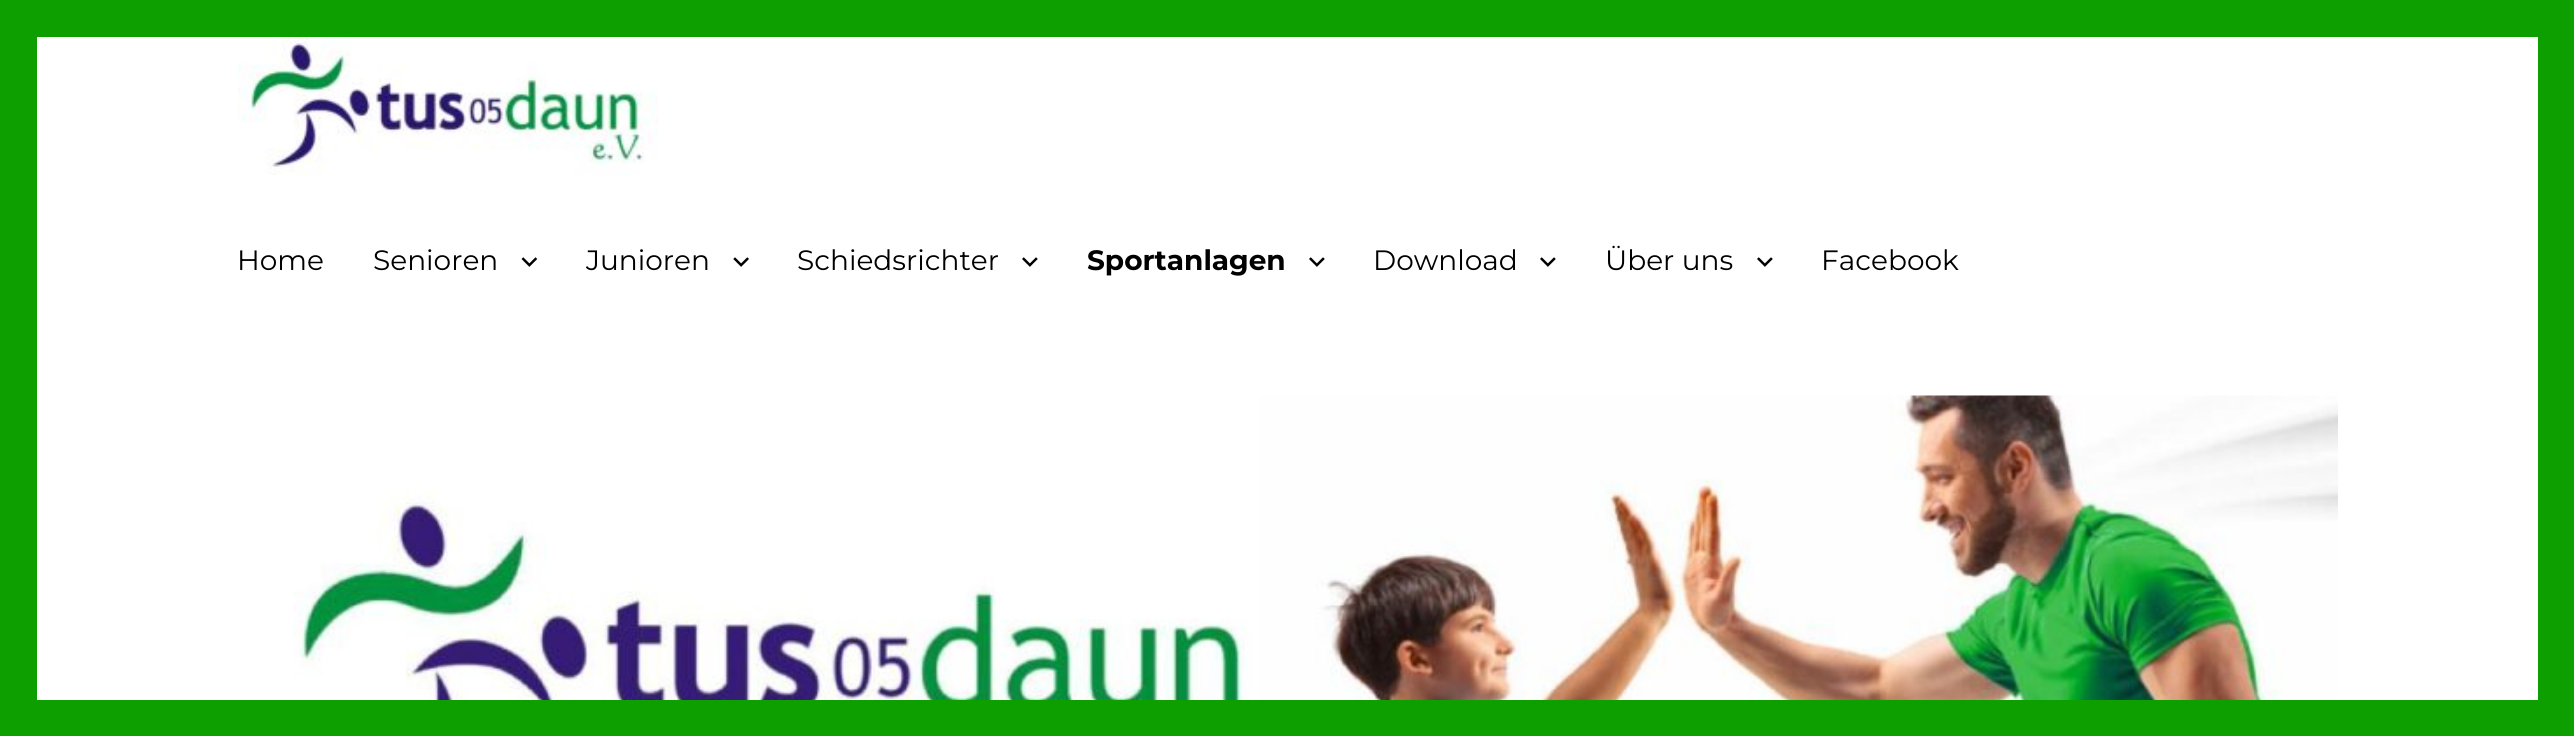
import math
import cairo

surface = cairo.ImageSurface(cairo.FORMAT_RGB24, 2574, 736)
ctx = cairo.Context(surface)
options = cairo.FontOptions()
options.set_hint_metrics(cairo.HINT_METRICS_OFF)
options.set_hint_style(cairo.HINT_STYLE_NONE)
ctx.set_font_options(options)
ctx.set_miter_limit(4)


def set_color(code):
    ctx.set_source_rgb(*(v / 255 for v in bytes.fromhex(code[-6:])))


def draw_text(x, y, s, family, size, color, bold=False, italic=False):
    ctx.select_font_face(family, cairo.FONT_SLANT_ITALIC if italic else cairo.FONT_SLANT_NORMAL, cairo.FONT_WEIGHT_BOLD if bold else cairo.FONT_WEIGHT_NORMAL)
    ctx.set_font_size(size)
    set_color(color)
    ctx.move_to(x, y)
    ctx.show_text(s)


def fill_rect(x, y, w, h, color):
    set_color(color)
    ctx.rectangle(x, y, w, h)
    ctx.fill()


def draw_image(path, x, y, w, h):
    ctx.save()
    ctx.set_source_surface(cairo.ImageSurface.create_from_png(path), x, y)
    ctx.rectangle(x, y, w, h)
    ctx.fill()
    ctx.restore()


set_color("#0d9e00")
ctx.paint()
fill_rect(37, 37, 2501, 663, "#ffffff")
draw_image("assets/img1.png", 238, 37, 420, 138)
draw_text(237, 270, "Home", "Montserrat Thin", 28, "#000000")
draw_text(373, 270, "Senioren", "Montserrat Thin", 28, "#000000")
draw_image("assets/img2.png", 521, 257, 17, 10)
draw_text(586, 270, "Junioren", "Montserrat Thin", 28, "#000000")
draw_image("assets/img3.png", 733, 257, 16, 10)
draw_text(797, 270, "Schiedsrichter", "Montserrat Thin", 28, "#000000")
draw_image("assets/img4.png", 1022, 257, 16, 10)
draw_text(1087, 270, "Sportanlagen", "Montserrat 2 Thin", 28, "#000000")
draw_image("assets/img4.png", 1309, 257, 16, 10)
draw_text(1373, 270, "Download", "Montserrat Thin", 28, "#000000")
draw_image("assets/img4.png", 1540, 257, 16, 10)
draw_text(1605, 270, "Über uns", "Montserrat Thin", 28, "#000000")
draw_image("assets/img4.png", 1757, 257, 16, 10)
draw_text(1821, 270, "Facebook", "Montserrat Thin", 28, "#000000")
draw_image("assets/img5.png", 293, 395, 2045, 305)
surface.write_to_png("output.png")
